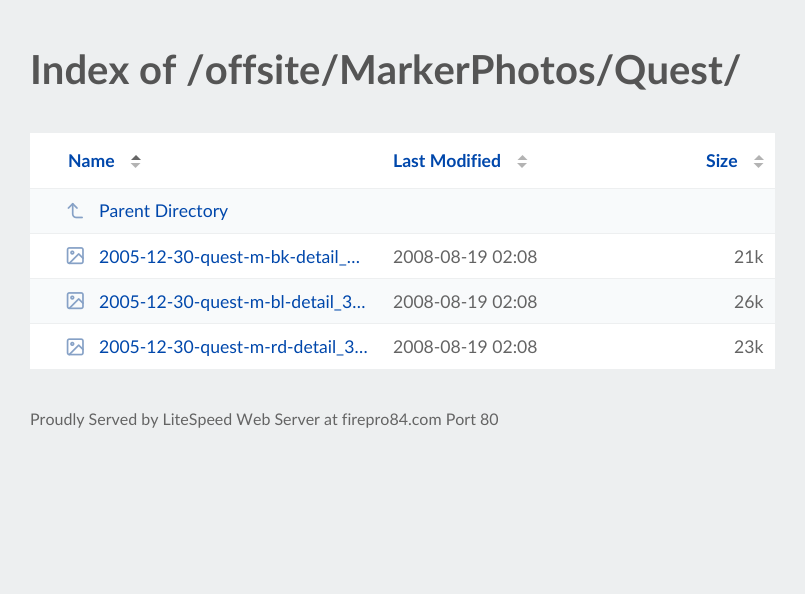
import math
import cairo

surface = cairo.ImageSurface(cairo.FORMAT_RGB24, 805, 594)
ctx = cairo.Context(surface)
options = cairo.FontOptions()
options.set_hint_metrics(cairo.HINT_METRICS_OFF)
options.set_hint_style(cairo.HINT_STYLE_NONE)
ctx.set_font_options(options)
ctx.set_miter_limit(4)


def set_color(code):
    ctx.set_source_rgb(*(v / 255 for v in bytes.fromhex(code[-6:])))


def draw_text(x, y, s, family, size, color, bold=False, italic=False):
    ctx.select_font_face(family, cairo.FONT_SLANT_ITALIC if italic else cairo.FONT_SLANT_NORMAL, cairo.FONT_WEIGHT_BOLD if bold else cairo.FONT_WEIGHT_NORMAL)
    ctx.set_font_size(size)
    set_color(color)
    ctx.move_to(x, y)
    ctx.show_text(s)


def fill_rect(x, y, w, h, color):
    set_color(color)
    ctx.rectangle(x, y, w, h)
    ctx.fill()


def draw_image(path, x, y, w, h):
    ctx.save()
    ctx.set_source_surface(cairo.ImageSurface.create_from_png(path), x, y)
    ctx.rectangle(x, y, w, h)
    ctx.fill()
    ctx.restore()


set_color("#edeff0")
ctx.paint()
draw_text(30, 84, "Index of /offsite/MarkerPhotos/Quest/", "Lato", 40, "#555555", bold=True)
fill_rect(30, 133, 745, 236, "#ffffff")
draw_text(68, 167, "Name", "Lato", 17.6, "#0047ab", bold=True)
set_color("#666666")
ctx.new_path()
ctx.move_to(141, 160)
ctx.line_to(131, 160)
ctx.line_to(136, 155)
ctx.close_path()
ctx.fill()
set_color("#b3b3b3")
ctx.new_path()
ctx.move_to(130.5, 163)
ctx.line_to(140.5, 163)
ctx.line_to(135.5, 168)
ctx.close_path()
ctx.fill()
draw_text(393, 167, "Last Modified", "Lato", 17.6, "#0047ab", bold=True)
set_color("#b3b3b3")
ctx.new_path()
ctx.move_to(527.5, 160)
ctx.line_to(517.5, 160)
ctx.line_to(522.5, 155)
ctx.close_path()
ctx.move_to(517, 163)
ctx.line_to(527, 163)
ctx.line_to(522, 168)
ctx.close_path()
ctx.fill()
draw_text(706, 167, "Size", "Lato", 17.6, "#0047ab", bold=True)
set_color("#b3b3b3")
ctx.new_path()
ctx.move_to(764, 160)
ctx.line_to(754, 160)
ctx.line_to(759, 155)
ctx.close_path()
ctx.move_to(753.5, 163)
ctx.line_to(763.5, 163)
ctx.line_to(758.5, 168)
ctx.close_path()
ctx.fill()
fill_rect(30, 189, 745, 44, "#f8fafb")
fill_rect(30, 188, 745, 1, "#edeff0")
fill_rect(30, 233, 745, 1, "#edeff0")
draw_image("assets/img1.png", 67, 202, 16, 17)
draw_text(99, 217, "Parent Directory", "Lato", 17.6, "#0047ab")
draw_image("assets/img2.png", 66, 247, 18, 18)
draw_text(99, 263, "2005-12-30-quest-m-bk-detail_…", "Lato", 17.6, "#0047ab")
draw_text(393, 263, "2008-08-19 02:08", "Lato", 17.6, "#646464")
draw_text(734, 263, "21k", "Lato", 17.6, "#646464")
fill_rect(30, 279, 745, 44, "#f8fafb")
fill_rect(30, 278, 745, 1, "#edeff0")
fill_rect(30, 323, 745, 1, "#edeff0")
draw_image("assets/img3.png", 66, 292, 18, 18)
draw_text(99, 308, "2005-12-30-quest-m-bl-detail_3…", "Lato", 17.6, "#0047ab")
draw_text(393, 308, "2008-08-19 02:08", "Lato", 17.6, "#646464")
draw_text(734, 308, "26k", "Lato", 17.6, "#646464")
draw_image("assets/img4.png", 66, 338, 18, 18)
draw_text(99, 353, "2005-12-30-quest-m-rd-detail_3…", "Lato", 17.6, "#0047ab")
draw_text(393, 353, "2008-08-19 02:08", "Lato", 17.6, "#646464")
draw_text(734, 353, "23k", "Lato", 17.6, "#646464")
draw_text(30, 425, "Proudly Served by LiteSpeed Web Server at firepro84.com Port 80", "Lato", 16, "#646464")
surface.write_to_png("output.png")
